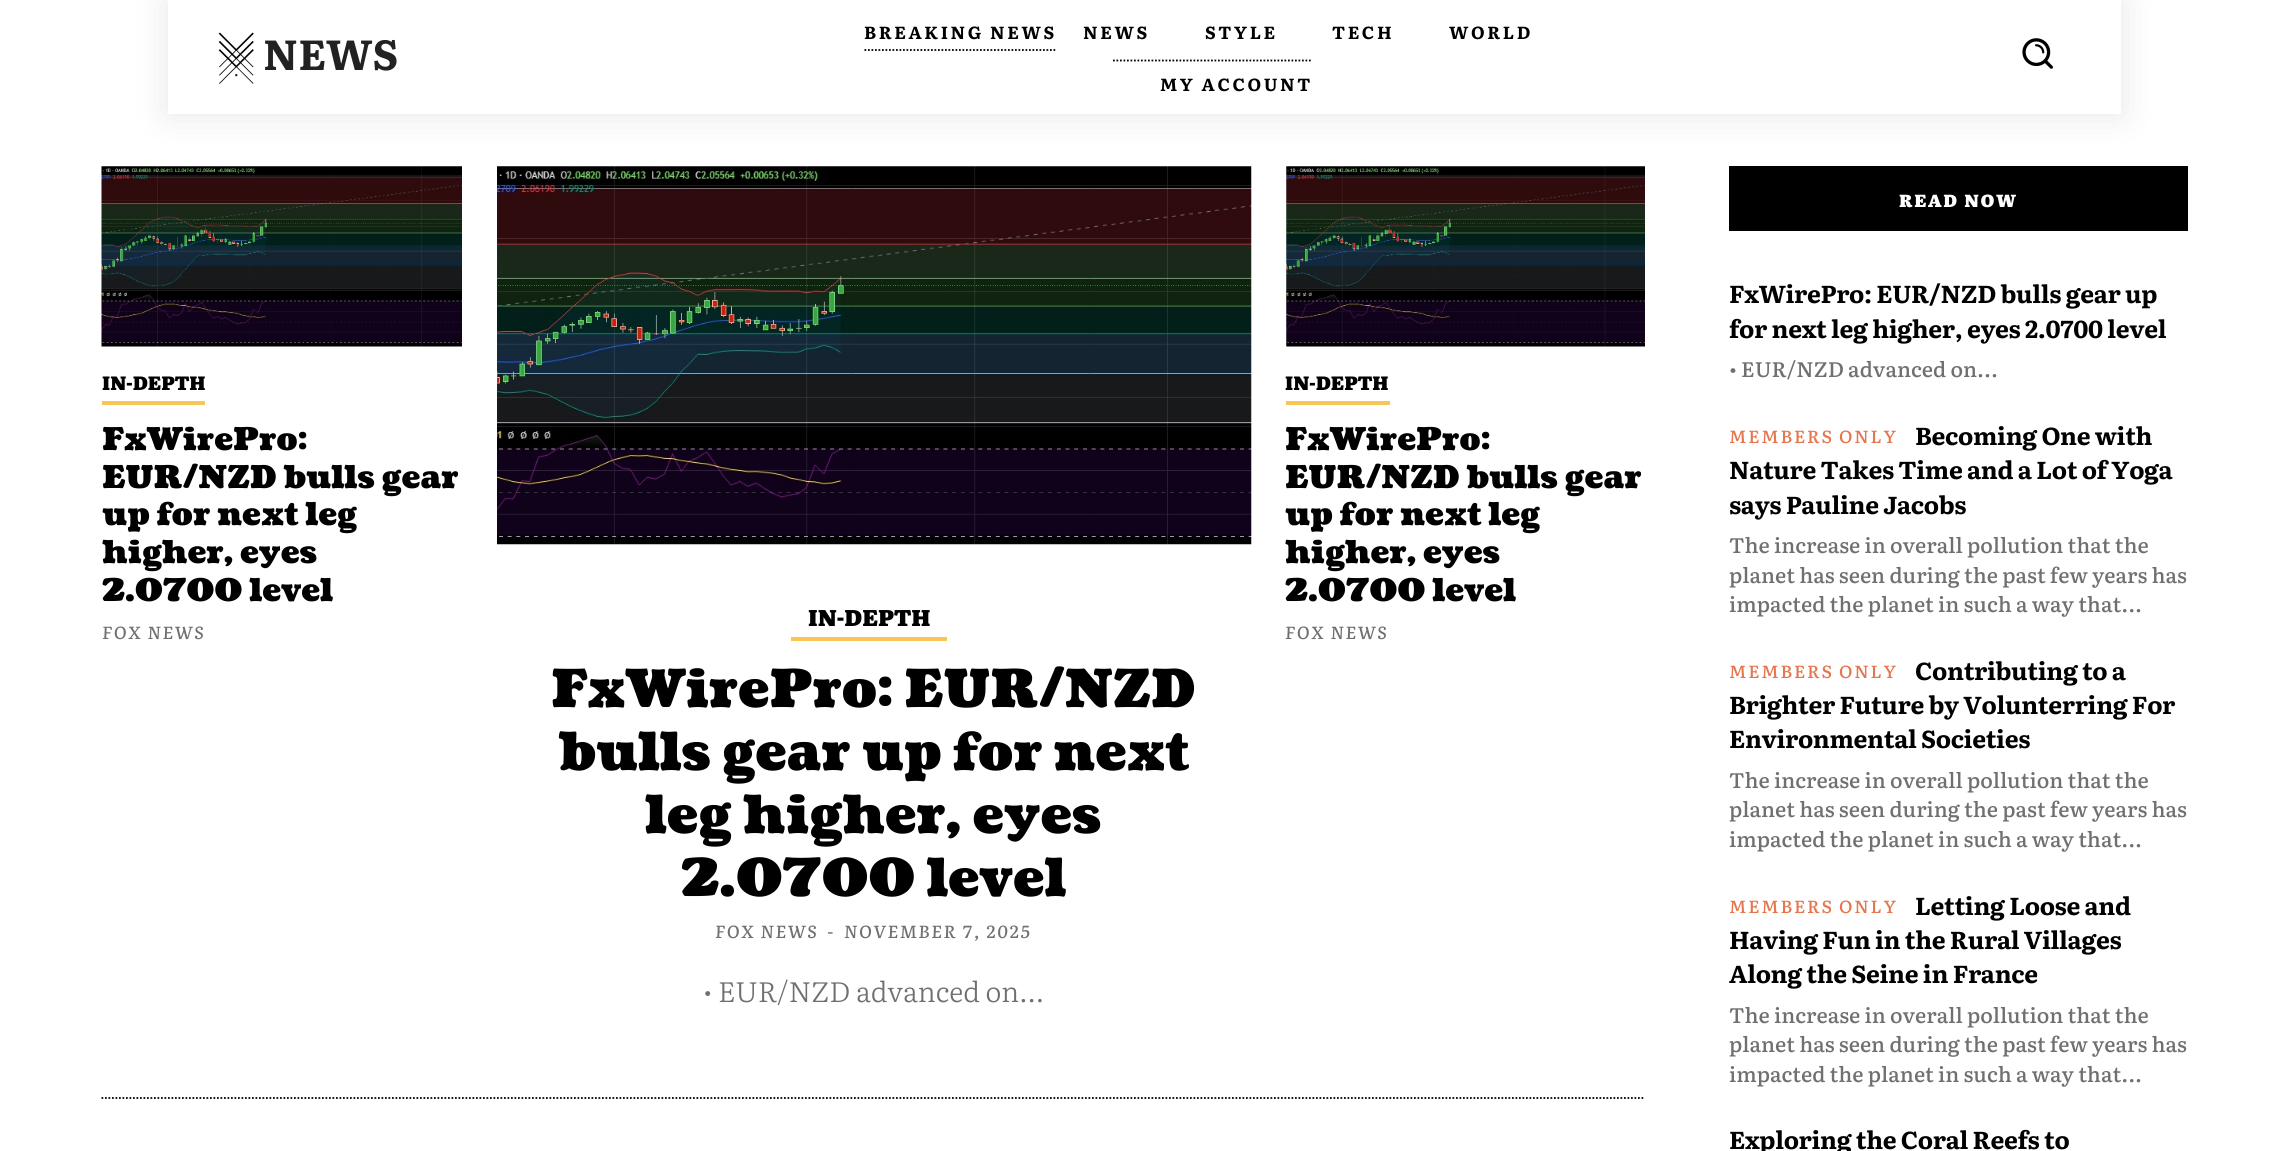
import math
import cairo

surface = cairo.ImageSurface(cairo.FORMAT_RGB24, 2289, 1151)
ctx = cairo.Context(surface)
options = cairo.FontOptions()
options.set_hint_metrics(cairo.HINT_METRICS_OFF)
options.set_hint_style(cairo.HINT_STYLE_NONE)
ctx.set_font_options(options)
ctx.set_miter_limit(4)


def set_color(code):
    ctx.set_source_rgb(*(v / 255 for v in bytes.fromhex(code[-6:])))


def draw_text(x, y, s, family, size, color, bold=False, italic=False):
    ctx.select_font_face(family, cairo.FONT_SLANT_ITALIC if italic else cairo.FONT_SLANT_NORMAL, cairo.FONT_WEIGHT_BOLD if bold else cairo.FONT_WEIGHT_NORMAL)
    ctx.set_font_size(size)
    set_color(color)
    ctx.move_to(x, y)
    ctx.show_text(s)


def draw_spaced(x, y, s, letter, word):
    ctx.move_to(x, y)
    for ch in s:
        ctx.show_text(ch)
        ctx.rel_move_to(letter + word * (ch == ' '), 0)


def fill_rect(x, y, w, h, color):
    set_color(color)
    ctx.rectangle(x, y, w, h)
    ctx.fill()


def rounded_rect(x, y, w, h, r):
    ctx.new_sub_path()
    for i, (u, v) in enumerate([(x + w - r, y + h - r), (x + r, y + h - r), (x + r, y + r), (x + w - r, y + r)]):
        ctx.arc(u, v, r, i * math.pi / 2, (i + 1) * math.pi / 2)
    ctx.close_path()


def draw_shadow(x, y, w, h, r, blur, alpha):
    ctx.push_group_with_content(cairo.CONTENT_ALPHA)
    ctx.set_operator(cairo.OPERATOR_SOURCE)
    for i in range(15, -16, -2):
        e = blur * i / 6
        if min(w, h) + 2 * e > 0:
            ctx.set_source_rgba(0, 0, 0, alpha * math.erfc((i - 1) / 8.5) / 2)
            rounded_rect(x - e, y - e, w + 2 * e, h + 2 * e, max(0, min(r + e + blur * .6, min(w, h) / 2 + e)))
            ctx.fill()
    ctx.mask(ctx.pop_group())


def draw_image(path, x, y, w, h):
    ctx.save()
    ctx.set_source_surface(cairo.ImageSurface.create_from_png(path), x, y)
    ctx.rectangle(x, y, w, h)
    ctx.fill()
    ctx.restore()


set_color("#ffffff")
ctx.paint()
draw_image("assets/img1.png", 218, 32, 36, 52)
ctx.new_path()
ctx.move_to(1113, 60.5)
ctx.line_to(1312.5, 60.5)
set_color("#000000")
ctx.set_line_width(1.8)
ctx.set_dash([1.75, 1.75])
ctx.stroke()
draw_image("assets/img3.png", 101, 166, 361, 181)
draw_image("assets/img4.png", 1286, 166, 359, 181)
draw_image("assets/img5.png", 497, 166, 755, 379)
fill_rect(1729, 166, 459, 65, "#000000")
ctx.save()
ctx.set_fill_rule(cairo.FILL_RULE_EVEN_ODD)
ctx.new_path()
ctx.move_to(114, 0)
ctx.line_to(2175, 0)
ctx.line_to(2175, 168)
ctx.line_to(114, 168)
ctx.close_path()
ctx.move_to(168, 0)
ctx.line_to(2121, 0)
ctx.line_to(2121, 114)
ctx.line_to(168, 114)
ctx.close_path()
ctx.clip()
set_color("#000000")
draw_shadow(168, 0, 1953, 114, 0, 17.5, 0.1)
ctx.restore()
draw_text(263, 70, "NEWS", "Literata", 42, "#222222", bold=True)
ctx.set_font_size(17.5)
set_color("#000000")
draw_spaced(864, 39, "BREAKING NEWS", 2.6, 0)
ctx.new_path()
ctx.move_to(864.5, 50)
ctx.line_to(1057, 50)
ctx.stroke()
draw_spaced(1083, 39, "NEWS", 2.6, 0)
draw_spaced(1205, 39, "STYLE", 2.6, 0)
draw_spaced(1332, 39, "TECH", 2.6, 0)
draw_spaced(1449, 39, "WORLD", 2.6, 0)
draw_spaced(1160, 91, "MY ACCOUNT", 2.6, 0)
draw_image("assets/img2.png", 2022, 38, 31, 31)
fill_rect(102, 401, 103, 4, "#f7c654")
draw_text(102, 390, "IN-DEPTH", "Literata Black", 19.25, "#000000")
draw_text(102, 450, "FxWirePro:", "Coustard Black", 31.5, "#000000")
draw_text(102, 488, "EUR/NZD bulls gear", "Coustard Black", 31.5, "#000000")
draw_text(102, 525, "up for next leg", "Coustard Black", 31.5, "#000000")
draw_text(102, 563, "higher, eyes", "Coustard Black", 31.5, "#000000")
draw_text(102, 601, "2.0700 level", "Coustard Black", 31.5, "#000000")
ctx.select_font_face("Literata Medium", cairo.FONT_SLANT_ITALIC)
ctx.set_font_size(17.5)
set_color("#707070")
draw_spaced(102, 639, "FOX NEWS", 1.75, 0)
fill_rect(1286, 401, 104, 4, "#f7c654")
draw_text(1285, 390, "IN-DEPTH", "Literata Black", 19.25, "#000000")
draw_text(1285, 450, "FxWirePro:", "Coustard Black", 31.5, "#000000")
draw_text(1285, 488, "EUR/NZD bulls gear", "Coustard Black", 31.5, "#000000")
draw_text(1285, 525, "up for next leg", "Coustard Black", 31.5, "#000000")
draw_text(1285, 563, "higher, eyes", "Coustard Black", 31.5, "#000000")
draw_text(1285, 601, "2.0700 level", "Coustard Black", 31.5, "#000000")
ctx.select_font_face("Literata Medium", cairo.FONT_SLANT_ITALIC)
ctx.set_font_size(17.5)
set_color("#707070")
draw_spaced(1285, 639, "FOX NEWS", 1.75, 0)
fill_rect(791, 637, 156, 4, "#f7c654")
draw_text(808, 626, "IN-DEPTH", "Literata Black", 22.75, "#000000")
draw_text(551, 707, "FxWirePro: EUR/NZD", "Coustard Black", 52.5, "#000000")
draw_text(558, 770, "bulls gear up for next", "Coustard Black", 52.5, "#000000")
draw_text(645, 833, "leg higher, eyes", "Coustard Black", 52.5, "#000000")
draw_text(681, 896, "2.0700 level", "Coustard Black", 52.5, "#000000")
ctx.select_font_face("Literata Medium", cairo.FONT_SLANT_ITALIC)
ctx.set_font_size(17.5)
set_color("#707070")
draw_spaced(715, 938, "FOX NEWS", 1.75, 0)
ctx.select_font_face("Literata", cairo.FONT_SLANT_ITALIC)
draw_spaced(827, 938, "-", 1.75, 0)
ctx.select_font_face("Literata Medium", cairo.FONT_SLANT_ITALIC)
draw_spaced(844, 938, "NOVEMBER 7, 2025", 1.75, 0)
draw_text(703, 1002, "• EUR/NZD advanced on...", "Literata Light", 28, "#707070")
ctx.new_path()
ctx.move_to(101.5, 1098)
ctx.line_to(1645, 1098)
set_color("#000000")
ctx.stroke()
ctx.select_font_face("Literata Black")
ctx.set_font_size(17.5)
set_color("#ffffff")
draw_spaced(1899, 207, "READ NOW", 1.75, 0)
ctx.select_font_face("Literata", cairo.FONT_SLANT_NORMAL, cairo.FONT_WEIGHT_BOLD)
ctx.set_font_size(24.5)
set_color("#000000")
draw_spaced(1729, 303, "FxWirePro: EUR/NZD bulls gear up", -0.35, 0)
draw_spaced(1729, 338, "for next leg higher, eyes 2.0700 level", -0.35, 0)
draw_text(1729, 377, "• EUR/NZD advanced on...", "Literata Medium", 21, "#707070")
ctx.set_font_size(17.5)
set_color("#e5764e")
draw_spaced(1729, 443, "MEMBERS ONLY", 1.75, 0)
ctx.select_font_face("Literata", cairo.FONT_SLANT_NORMAL, cairo.FONT_WEIGHT_BOLD)
ctx.set_font_size(24.5)
set_color("#000000")
draw_spaced(1915, 445, "Becoming One with", -0.35, 0)
draw_spaced(1729, 479, "Nature Takes Time and a Lot of Yoga", -0.35, 0)
draw_spaced(1729, 514, "says Pauline Jacobs", -0.35, 0)
draw_text(1729, 553, "The increase in overall pollution that the", "Literata Medium", 21, "#707070")
draw_text(1729, 583, "planet has seen during the past few years has", "Literata Medium", 21, "#707070")
draw_text(1729, 612, "impacted the planet in such a way that...", "Literata Medium", 21, "#707070")
ctx.set_font_size(17.5)
set_color("#e5764e")
draw_spaced(1729, 678, "MEMBERS ONLY", 1.75, 0)
ctx.select_font_face("Literata", cairo.FONT_SLANT_NORMAL, cairo.FONT_WEIGHT_BOLD)
ctx.set_font_size(24.5)
set_color("#000000")
draw_spaced(1915, 680, "Contributing to a", -0.35, 0)
draw_spaced(1729, 714, "Brighter Future by Volunterring For", -0.35, 0)
draw_spaced(1729, 748, "Environmental Societies", -0.35, 0)
draw_text(1729, 788, "The increase in overall pollution that the", "Literata Medium", 21, "#707070")
draw_text(1729, 817, "planet has seen during the past few years has", "Literata Medium", 21, "#707070")
draw_text(1729, 847, "impacted the planet in such a way that...", "Literata Medium", 21, "#707070")
ctx.set_font_size(17.5)
set_color("#e5764e")
draw_spaced(1729, 913, "MEMBERS ONLY", 1.75, 0)
ctx.select_font_face("Literata", cairo.FONT_SLANT_NORMAL, cairo.FONT_WEIGHT_BOLD)
ctx.set_font_size(24.5)
set_color("#000000")
draw_spaced(1915, 915, "Letting Loose and", -0.35, 0)
draw_spaced(1729, 949, "Having Fun in the Rural Villages", -0.35, 0)
draw_spaced(1729, 983, "Along the Seine in France", -0.35, 0)
draw_text(1729, 1023, "The increase in overall pollution that the", "Literata Medium", 21, "#707070")
draw_text(1729, 1052, "planet has seen during the past few years has", "Literata Medium", 21, "#707070")
draw_text(1729, 1082, "impacted the planet in such a way that...", "Literata Medium", 21, "#707070")
ctx.select_font_face("Literata", cairo.FONT_SLANT_NORMAL, cairo.FONT_WEIGHT_BOLD)
ctx.set_font_size(24.5)
set_color("#000000")
draw_spaced(1729, 1149, "Exploring the Coral Reefs to", -0.35, 0)
surface.write_to_png("output.png")
